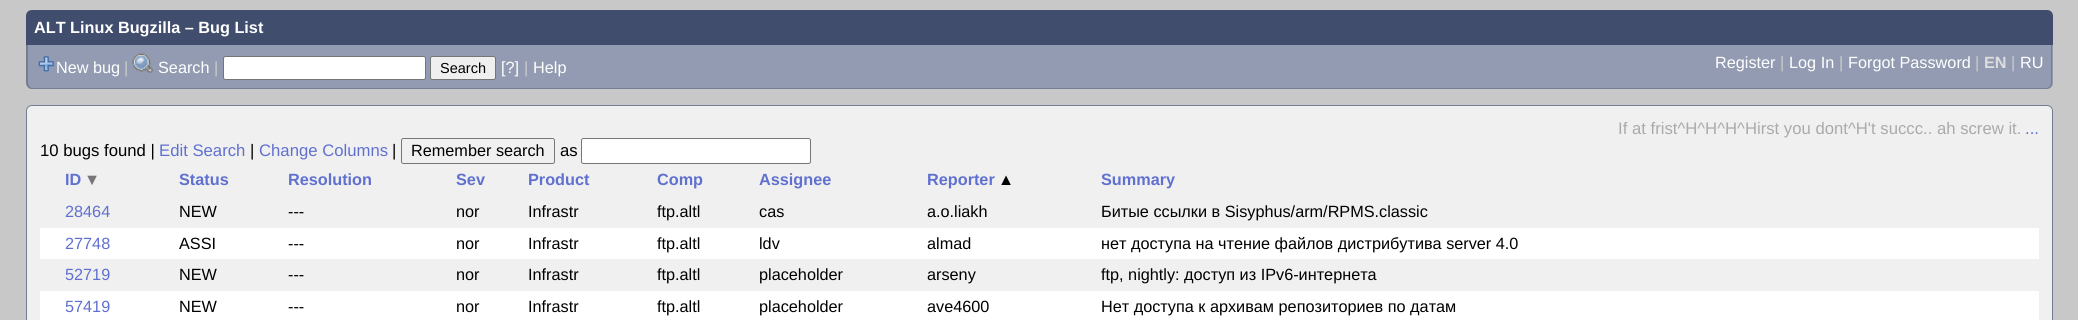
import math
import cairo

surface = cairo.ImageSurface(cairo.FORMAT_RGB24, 2078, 320)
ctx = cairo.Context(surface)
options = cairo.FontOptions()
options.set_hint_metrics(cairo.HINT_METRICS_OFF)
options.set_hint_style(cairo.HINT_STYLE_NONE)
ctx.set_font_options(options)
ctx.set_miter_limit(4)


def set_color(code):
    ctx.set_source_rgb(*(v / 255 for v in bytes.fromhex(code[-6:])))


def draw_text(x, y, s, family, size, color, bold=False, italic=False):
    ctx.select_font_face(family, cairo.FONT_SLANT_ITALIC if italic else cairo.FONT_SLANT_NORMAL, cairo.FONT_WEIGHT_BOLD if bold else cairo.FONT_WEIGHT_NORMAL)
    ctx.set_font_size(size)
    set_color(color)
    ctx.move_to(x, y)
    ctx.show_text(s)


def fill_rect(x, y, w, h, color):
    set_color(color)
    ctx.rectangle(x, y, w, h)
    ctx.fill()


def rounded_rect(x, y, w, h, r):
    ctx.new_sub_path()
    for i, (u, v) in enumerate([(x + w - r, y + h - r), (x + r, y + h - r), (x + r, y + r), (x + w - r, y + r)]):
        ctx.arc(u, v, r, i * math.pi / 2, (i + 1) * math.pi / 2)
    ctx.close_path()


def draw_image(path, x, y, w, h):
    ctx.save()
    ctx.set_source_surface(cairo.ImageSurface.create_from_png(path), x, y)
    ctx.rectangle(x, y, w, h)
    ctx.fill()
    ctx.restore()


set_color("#c8c8c8")
ctx.paint()
set_color("#404d6c")
ctx.new_path()
ctx.move_to(32, 10)
ctx.line_to(2047, 10)
ctx.curve_to(2050.5, 10, 2053, 12.5, 2053, 16)
ctx.line_to(2053, 45)
ctx.line_to(26, 45)
ctx.line_to(26, 16)
ctx.curve_to(26, 12.5, 28.5, 10, 32, 10)
ctx.close_path()
ctx.fill()
draw_text(34, 33, "ALT Linux Bugzilla – Bug List", "Liberation Sans", 16.25, "#ffffff", bold=True)
set_color("#929bb1")
ctx.new_path()
ctx.move_to(26, 45)
ctx.line_to(2053, 45)
ctx.line_to(2053, 83)
ctx.curve_to(2053, 86.5, 2050.5, 89, 2047, 89)
ctx.line_to(32, 89)
ctx.curve_to(28.5, 89, 26, 86.5, 26, 83)
ctx.close_path()
ctx.fill()
set_color("#747e93")
ctx.set_fill_rule(cairo.FILL_RULE_EVEN_ODD)
ctx.new_path()
ctx.move_to(26, 45)
ctx.line_to(2052, 45)
ctx.line_to(2052, 82)
ctx.curve_to(2052, 86, 2050, 89, 2046, 89)
ctx.line_to(32, 89)
ctx.curve_to(29, 89, 26, 86, 26, 82)
ctx.close_path()
ctx.move_to(28, 45)
ctx.line_to(2051, 45)
ctx.line_to(2051, 82)
ctx.curve_to(2051, 85, 2049, 88, 2046, 88)
ctx.line_to(32, 88)
ctx.curve_to(30, 88, 28, 85, 28, 82)
ctx.close_path()
ctx.fill()
draw_image("assets/img1.png", 38, 56, 16, 16)
draw_text(56, 73, "New bug", "Liberation Sans", 16.25, "#ffffff")
draw_text(124, 73, "|", "Liberation Sans", 16.25, "#cccccc")
draw_image("assets/img2.png", 132, 53, 21, 20)
draw_text(158, 73, "Search", "Liberation Sans", 16.25, "#ffffff")
draw_text(214, 73, "|", "Liberation Sans", 16.25, "#cccccc")
set_color("#ffffff")
rounded_rect(223.5, 56.5, 202, 23, 2)
ctx.fill_preserve()
set_color("#767676")
ctx.set_line_width(1)
ctx.stroke()
set_color("#efefef")
rounded_rect(430.5, 56.5, 65, 23, 2)
ctx.fill_preserve()
set_color("#767676")
ctx.stroke()
draw_text(440, 73, "Search", "Liberation Sans", 14.5, "#000000")
draw_text(501, 73, "[?]", "Liberation Sans", 16.25, "#ffffff")
draw_text(524, 73, "|", "Liberation Sans", 16.25, "#cccccc")
draw_text(533, 73, "Help", "Liberation Sans", 16.25, "#ffffff")
draw_text(1715, 68, "Register", "Liberation Sans", 16.25, "#ffffff")
draw_text(1780, 68, "|", "Liberation Sans", 16.25, "#cccccc")
draw_text(1789, 68, "Log In", "Liberation Sans", 16.25, "#ffffff")
draw_text(1839, 68, "|", "Liberation Sans", 16.25, "#cccccc")
draw_text(1848, 68, "Forgot Password", "Liberation Sans", 16.25, "#ffffff")
draw_text(1975, 68, "|", "Liberation Sans", 16.25, "#cccccc")
draw_text(1984, 68, "EN", "Liberation Sans", 16.25, "#dddddd", bold=True)
draw_text(2011, 68, "|", "Liberation Sans", 16.25, "#cccccc")
draw_text(2020, 68, "RU", "Liberation Sans", 16.25, "#ffffff")
set_color("#f0f0f0")
rounded_rect(26.5, 105.5, 2026, 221, 5.5)
ctx.fill_preserve()
set_color("#747e93")
ctx.stroke()
draw_text(1618, 134, "If at frist^H^H^H^Hirst you dont^H't succc.. ah screw it.", "Liberation Sans", 16.7, "#aaaaaa")
draw_text(2025, 134, "...", "Liberation Sans", 16.7, "#6070cf")
draw_text(40, 156, "10 bugs found |", "Liberation Sans", 16.7, "#000000")
draw_text(159, 156, "Edit Search", "Liberation Sans", 16.7, "#6070cf")
draw_text(250, 156, "|", "Liberation Sans", 16.7, "#000000")
draw_text(259, 156, "Change Columns", "Liberation Sans", 16.7, "#6070cf")
draw_text(392, 156, "|", "Liberation Sans", 16.7, "#000000")
rounded_rect(401.5, 138.5, 153, 25, 2)
set_color("#767676")
ctx.stroke()
draw_text(411, 156, "Remember search", "Liberation Sans", 16.25, "#000000")
draw_text(560, 156, "as", "Liberation Sans", 16.7, "#000000")
set_color("#ffffff")
rounded_rect(581.5, 138.5, 229, 25, 2)
ctx.fill_preserve()
set_color("#767676")
ctx.stroke()
draw_text(65, 185, "ID", "Liberation Sans", 16.25, "#6070cf", bold=True)
draw_text(84, 185, "▼", "Liberation Sans", 16.25, "#777777", bold=True)
draw_text(179, 185, "Status", "Liberation Sans", 16.25, "#6070cf", bold=True)
draw_text(288, 185, "Resolution", "Liberation Sans", 16.25, "#6070cf", bold=True)
draw_text(456, 185, "Sev", "Liberation Sans", 16.25, "#6070cf", bold=True)
draw_text(528, 185, "Product", "Liberation Sans", 16.25, "#6070cf", bold=True)
draw_text(657, 185, "Comp", "Liberation Sans", 16.25, "#6070cf", bold=True)
draw_text(759, 185, "Assignee", "Liberation Sans", 16.25, "#6070cf", bold=True)
draw_text(927, 185, "Reporter", "Liberation Sans", 16.25, "#6070cf", bold=True)
draw_text(998, 185, "▲", "Liberation Sans", 16.25, "#000000", bold=True)
draw_text(1101, 185, "Summary", "Liberation Sans", 16.25, "#6070cf", bold=True)
draw_text(65, 217, "28464", "Liberation Sans", 16.25, "#6070cf")
draw_text(179, 217, "NEW", "Liberation Sans", 16.25, "#000000")
draw_text(288, 217, "---", "Liberation Sans", 16.25, "#000000")
draw_text(456, 217, "nor", "Liberation Sans", 16.25, "#000000")
draw_text(528, 217, "Infrastr", "Liberation Sans", 16.25, "#000000")
draw_text(657, 217, "ftp.altl", "Liberation Sans", 16.25, "#000000")
draw_text(759, 217, "cas", "Liberation Sans", 16.25, "#000000")
draw_text(927, 217, "a.o.liakh", "Liberation Sans", 16.25, "#000000")
draw_text(1101, 217, "Битые ссылки в Sisyphus/arm/RPMS.classic", "Liberation Sans", 16.25, "#000000")
fill_rect(40, 228, 1999, 31, "#ffffff")
draw_text(65, 249, "27748", "Liberation Sans", 16.25, "#6070cf")
draw_text(179, 249, "ASSI", "Liberation Sans", 16.25, "#000000")
draw_text(288, 249, "---", "Liberation Sans", 16.25, "#000000")
draw_text(456, 249, "nor", "Liberation Sans", 16.25, "#000000")
draw_text(528, 249, "Infrastr", "Liberation Sans", 16.25, "#000000")
draw_text(657, 249, "ftp.altl", "Liberation Sans", 16.25, "#000000")
draw_text(759, 249, "ldv", "Liberation Sans", 16.25, "#000000")
draw_text(927, 249, "almad", "Liberation Sans", 16.25, "#000000")
draw_text(1101, 249, "нет доступа на чтение файлов дистрибутива server 4.0", "Liberation Sans", 16.25, "#000000")
draw_text(65, 280, "52719", "Liberation Sans", 16.25, "#6070cf")
draw_text(179, 280, "NEW", "Liberation Sans", 16.25, "#000000")
draw_text(288, 280, "---", "Liberation Sans", 16.25, "#000000")
draw_text(456, 280, "nor", "Liberation Sans", 16.25, "#000000")
draw_text(528, 280, "Infrastr", "Liberation Sans", 16.25, "#000000")
draw_text(657, 280, "ftp.altl", "Liberation Sans", 16.25, "#000000")
draw_text(759, 280, "placeholder", "Liberation Sans", 16.25, "#000000")
draw_text(927, 280, "arseny", "Liberation Sans", 16.25, "#000000")
draw_text(1101, 280, "ftp, nightly: доступ из IPv6-интернета", "Liberation Sans", 16.25, "#000000")
fill_rect(40, 291, 1999, 29, "#ffffff")
draw_text(65, 312, "57419", "Liberation Sans", 16.25, "#6070cf")
draw_text(179, 312, "NEW", "Liberation Sans", 16.25, "#000000")
draw_text(288, 312, "---", "Liberation Sans", 16.25, "#000000")
draw_text(456, 312, "nor", "Liberation Sans", 16.25, "#000000")
draw_text(528, 312, "Infrastr", "Liberation Sans", 16.25, "#000000")
draw_text(657, 312, "ftp.altl", "Liberation Sans", 16.25, "#000000")
draw_text(759, 312, "placeholder", "Liberation Sans", 16.25, "#000000")
draw_text(927, 312, "ave4600", "Liberation Sans", 16.25, "#000000")
draw_text(1101, 312, "Нет доступа к архивам репозиториев по датам", "Liberation Sans", 16.25, "#000000")
surface.write_to_png("output.png")
